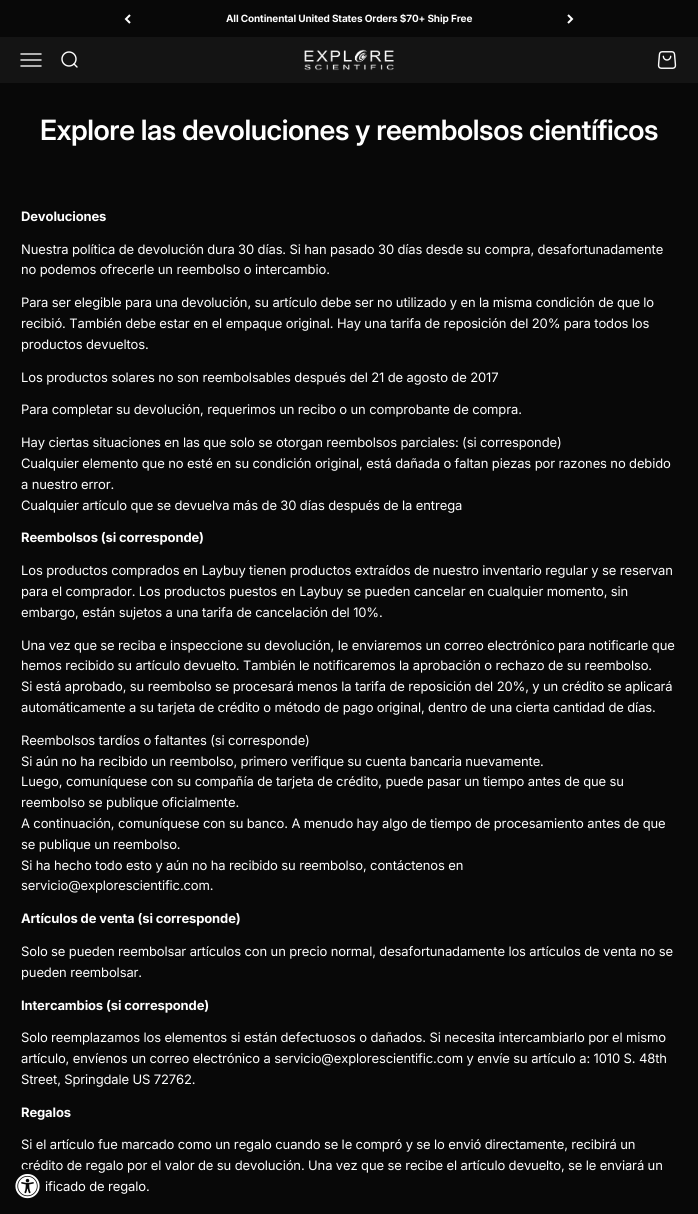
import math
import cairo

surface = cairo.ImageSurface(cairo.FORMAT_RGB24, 698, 1214)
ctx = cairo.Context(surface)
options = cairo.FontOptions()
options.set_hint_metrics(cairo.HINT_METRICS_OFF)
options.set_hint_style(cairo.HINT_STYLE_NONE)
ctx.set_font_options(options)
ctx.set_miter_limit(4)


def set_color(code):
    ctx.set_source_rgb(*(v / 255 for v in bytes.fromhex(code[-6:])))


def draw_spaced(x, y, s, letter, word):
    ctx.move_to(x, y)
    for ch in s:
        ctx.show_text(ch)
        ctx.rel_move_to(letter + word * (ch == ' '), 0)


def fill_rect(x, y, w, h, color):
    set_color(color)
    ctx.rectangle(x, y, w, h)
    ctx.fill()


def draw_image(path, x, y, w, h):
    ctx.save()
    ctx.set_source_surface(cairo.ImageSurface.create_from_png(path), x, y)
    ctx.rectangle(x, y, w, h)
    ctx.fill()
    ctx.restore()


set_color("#080808")
ctx.paint()
ctx.new_path()
ctx.move_to(130, 15)
ctx.line_to(126, 19)
ctx.line_to(130, 23)
set_color("#ffffff")
ctx.stroke()
ctx.select_font_face("Inter", cairo.FONT_SLANT_NORMAL, cairo.FONT_WEIGHT_BOLD)
ctx.set_font_size(10)
draw_spaced(226, 22, "All Continental United States Orders $70+ Ship Free", -0.13, 0)
ctx.new_path()
ctx.move_to(568, 23)
ctx.line_to(572, 19)
ctx.line_to(568, 15)
ctx.stroke()
fill_rect(0, 37, 698, 46, "#141414")
draw_image("assets/img1.png", 20, 53, 22, 14)
draw_image("assets/img2.png", 61, 51, 17, 17)
draw_image("assets/img3.png", 304, 49, 90, 22)
draw_image("assets/img4.png", 657, 51, 20, 18)
ctx.select_font_face("Inter SemiBold")
ctx.set_font_size(28)
set_color("#ffffff")
draw_spaced(40, 140, "Explore las devoluciones y reembolsos científicos", -0.4, 0)
ctx.select_font_face("Inter", cairo.FONT_SLANT_NORMAL, cairo.FONT_WEIGHT_BOLD)
ctx.set_font_size(13)
draw_spaced(21, 221, "Devoluciones", -0.13, 0)
ctx.select_font_face("Inter")
draw_spaced(21, 254, "Nuestra política de devolución dura 30 días. Si han pasado 30 días desde su compra, desafortunadamente", -0.13, 0)
draw_spaced(21, 274, "no podemos ofrecerle un reembolso o intercambio.", -0.13, 0)
draw_spaced(21, 307, "Para ser elegible para una devolución, su artículo debe ser no utilizado y en la misma condición de que lo", -0.13, 0)
draw_spaced(21, 328, "recibió. También debe estar en el empaque original. Hay una tarifa de reposición del 20% para todos los", -0.13, 0)
draw_spaced(21, 349, "productos devueltos.", -0.13, 0)
draw_spaced(21, 382, "Los productos solares no son reembolsables después del 21 de agosto de 2017", -0.13, 0)
draw_spaced(21, 414, "Para completar su devolución, requerimos un recibo o un comprobante de compra.", -0.13, 0)
draw_spaced(21, 447, "Hay ciertas situaciones en las que solo se otorgan reembolsos parciales: (si corresponde)", -0.13, 0)
draw_spaced(21, 468, "Cualquier elemento que no esté en su condición original, está dañada o faltan piezas por razones no debido", -0.13, 0)
draw_spaced(21, 489, "a nuestro error.", -0.13, 0)
draw_spaced(21, 510, "Cualquier artículo que se devuelva más de 30 días después de la entrega", -0.13, 0)
ctx.select_font_face("Inter", cairo.FONT_SLANT_NORMAL, cairo.FONT_WEIGHT_BOLD)
draw_spaced(21, 542, "Reembolsos (si corresponde)", -0.13, 0)
ctx.select_font_face("Inter")
draw_spaced(21, 575, "Los productos comprados en Laybuy tienen productos extraídos de nuestro inventario regular y se reservan", -0.13, 0)
draw_spaced(21, 596, "para el comprador. Los productos puestos en Laybuy se pueden cancelar en cualquier momento, sin", -0.13, 0)
draw_spaced(21, 617, "embargo, están sujetos a una tarifa de cancelación del 10%.", -0.13, 0)
draw_spaced(21, 650, "Una vez que se reciba e inspeccione su devolución, le enviaremos un correo electrónico para notificarle que", -0.13, 0)
draw_spaced(21, 670, "hemos recibido su artículo devuelto. También le notificaremos la aprobación o rechazo de su reembolso.", -0.13, 0)
draw_spaced(21, 691, "Si está aprobado, su reembolso se procesará menos la tarifa de reposición del 20%, y un crédito se aplicará", -0.13, 0)
draw_spaced(21, 712, "automáticamente a su tarjeta de crédito o método de pago original, dentro de una cierta cantidad de días.", -0.13, 0)
draw_spaced(21, 745, "Reembolsos tardíos o faltantes (si corresponde)", -0.13, 0)
draw_spaced(21, 766, "Si aún no ha recibido un reembolso, primero verifique su cuenta bancaria nuevamente.", -0.13, 0)
draw_spaced(21, 786, "Luego, comuníquese con su compañía de tarjeta de crédito, puede pasar un tiempo antes de que su", -0.13, 0)
draw_spaced(21, 807, "reembolso se publique oficialmente.", -0.13, 0)
draw_spaced(21, 828, "A continuación, comuníquese con su banco. A menudo hay algo de tiempo de procesamiento antes de que", -0.13, 0)
draw_spaced(21, 849, "se publique un reembolso.", -0.13, 0)
draw_spaced(21, 870, "Si ha hecho todo esto y aún no ha recibido su reembolso, contáctenos en", -0.13, 0)
draw_spaced(21, 890, "servicio@explorescientific.com.", -0.13, 0)
ctx.select_font_face("Inter", cairo.FONT_SLANT_NORMAL, cairo.FONT_WEIGHT_BOLD)
draw_spaced(21, 923, "Artículos de venta (si corresponde)", -0.13, 0)
ctx.select_font_face("Inter")
draw_spaced(21, 956, "Solo se pueden reembolsar artículos con un precio normal, desafortunadamente los artículos de venta no se", -0.13, 0)
draw_spaced(21, 977, "pueden reembolsar.", -0.13, 0)
ctx.select_font_face("Inter", cairo.FONT_SLANT_NORMAL, cairo.FONT_WEIGHT_BOLD)
draw_spaced(21, 1010, "Intercambios (si corresponde)", -0.13, 0)
ctx.select_font_face("Inter")
draw_spaced(21, 1042, "Solo reemplazamos los elementos si están defectuosos o dañados. Si necesita intercambiarlo por el mismo", -0.13, 0)
draw_spaced(21, 1063, "artículo, envíenos un correo electrónico a servicio@explorescientific.com y envíe su artículo a: 1010 S. 48th", -0.13, 0)
draw_spaced(21, 1084, "Street, Springdale US 72762.", -0.13, 0)
ctx.select_font_face("Inter", cairo.FONT_SLANT_NORMAL, cairo.FONT_WEIGHT_BOLD)
draw_spaced(21, 1117, "Regalos", -0.13, 0)
ctx.select_font_face("Inter")
draw_spaced(21, 1149, "Si el artículo fue marcado como un regalo cuando se le compró y se lo envió directamente, recibirá un", -0.13, 0)
draw_spaced(21, 1170, "crédito de regalo por el valor de su devolución. Una vez que se recibe el artículo devuelto, se le enviará un", -0.13, 0)
draw_spaced(45, 1191, "ificado de regalo.", -0.13, 0)
set_color("#080808")
ctx.new_path()
ctx.arc(27.5, 1186.5, 17.5, 0, 2 * math.pi)
ctx.fill()
draw_image("assets/img5.png", 15, 1174, 25, 25)
surface.write_to_png("output.png")
